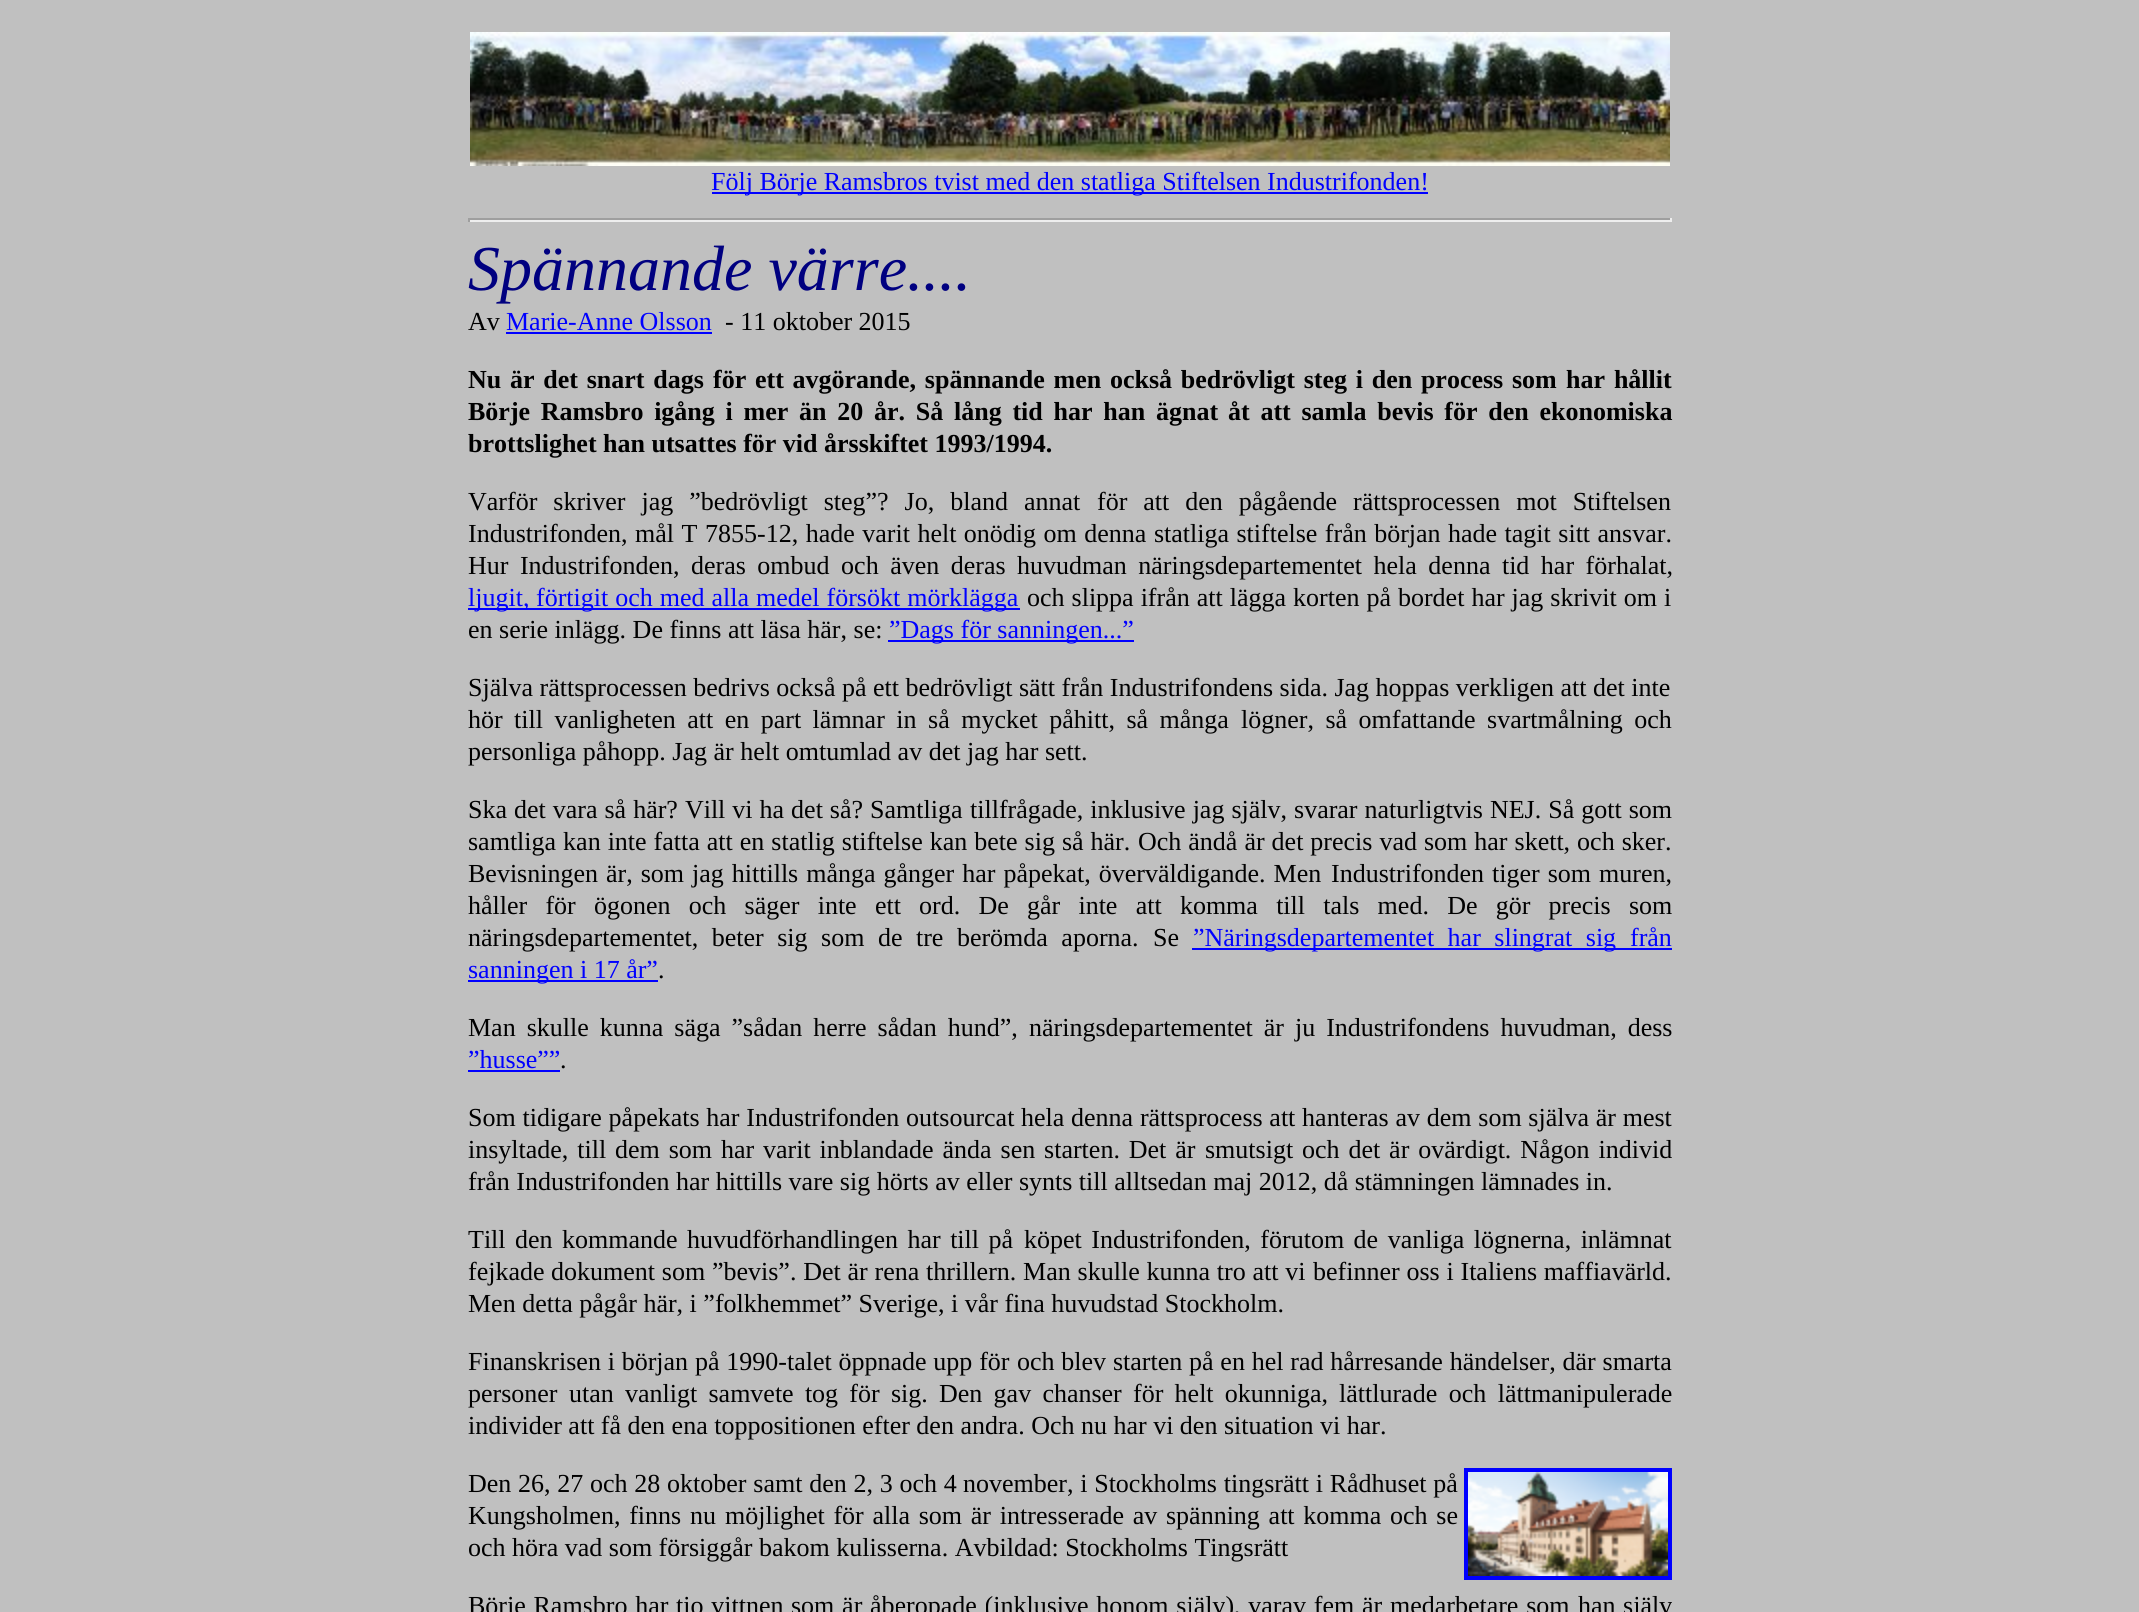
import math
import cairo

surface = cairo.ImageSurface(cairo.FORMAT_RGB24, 2139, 1612)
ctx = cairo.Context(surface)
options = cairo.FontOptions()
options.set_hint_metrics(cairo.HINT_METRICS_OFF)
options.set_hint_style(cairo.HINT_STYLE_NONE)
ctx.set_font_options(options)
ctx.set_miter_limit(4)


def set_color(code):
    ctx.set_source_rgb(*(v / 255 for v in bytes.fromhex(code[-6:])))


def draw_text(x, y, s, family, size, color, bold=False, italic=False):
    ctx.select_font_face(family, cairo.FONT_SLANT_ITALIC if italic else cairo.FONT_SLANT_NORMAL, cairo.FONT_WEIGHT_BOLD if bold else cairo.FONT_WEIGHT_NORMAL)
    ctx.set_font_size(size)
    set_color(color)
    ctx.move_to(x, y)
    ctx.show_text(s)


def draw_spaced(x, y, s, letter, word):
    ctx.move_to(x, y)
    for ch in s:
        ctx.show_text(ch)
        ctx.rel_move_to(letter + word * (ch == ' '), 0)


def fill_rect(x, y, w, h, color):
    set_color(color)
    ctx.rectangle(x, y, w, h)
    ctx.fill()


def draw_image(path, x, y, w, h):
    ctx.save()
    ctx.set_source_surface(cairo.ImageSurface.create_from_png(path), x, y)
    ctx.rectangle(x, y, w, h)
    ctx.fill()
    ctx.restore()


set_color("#c0c0c0")
ctx.paint()
draw_image("assets/img1.png", 470, 32, 1200, 134)
fill_rect(712, 192, 716, 2, "#0000ff")
draw_text(711, 190, "Följ Börje Ramsbros tvist med den statliga Stiftelsen Industrifonden!", "Liberation Serif", 26, "#0000ff")
fill_rect(468, 218, 1204, 2, "#9f9f9f")
fill_rect(1670, 218, 2, 4, "#eeeeee")
fill_rect(468, 220, 1204, 2, "#eeeeee")
fill_rect(468, 218, 2, 4, "#9f9f9f")
draw_text(468, 290, "Spännande värre....", "Liberation Serif", 64, "#000080", italic=True)
draw_text(468, 330, "Av", "Liberation Serif", 26, "#000000")
draw_text(506, 330, "Marie-Anne Olsson", "Liberation Serif", 26, "#0000ff")
fill_rect(506, 332, 206, 2, "#0000ff")
draw_text(725, 330, "- 11 oktober 2015", "Liberation Serif", 26, "#000000")
ctx.select_font_face("Liberation Serif", cairo.FONT_SLANT_NORMAL, cairo.FONT_WEIGHT_BOLD)
draw_spaced(468, 388, "Nu är det snart dags", 0, 2.25)
draw_spaced(713, 388, "för ett avgörande, spännande men också bedrövligt steg i den process som", 0, 2.25)
draw_spaced(1566, 388, "har hållit", 0, 2.4)
draw_spaced(468, 420, "Börje Ramsbro igång i mer än 20 år. Så lång tid har han ägnat", 0, 4.25)
draw_spaced(1228, 420, "åt att samla bevis för den ekonomiska", 0, 4.25)
draw_text(468, 452, "brottslighet han utsattes för vid årsskiftet 1993/1994.", "Liberation Serif", 26, "#000000", bold=True)
ctx.select_font_face("Liberation Serif")
draw_spaced(468, 510, "Varför skriver jag ”bedrövligt steg”? Jo, bland annat", 0, 9.5)
draw_spaced(1097, 510, "för att den pågående rättsprocessen mot Stiftelsen", 0, 9.5)
draw_spaced(468, 542, "Industrifonden, mål T", 0, 1)
draw_spaced(705, 542, "7855-12, hade varit helt onödig om denna statliga stiftelse från början", 0, 1)
draw_spaced(1448, 542, "hade tagit sitt ansvar.", 0, 1)
draw_spaced(468, 574, "Hur Industrifonden, deras ombud och även deras", 0, 5)
draw_spaced(1017, 574, "huvudman näringsdepartementet hela denna tid har förhalat,", 0, 5)
fill_rect(468, 608, 552, 2, "#0000ff")
draw_text(468, 606, "ljugit,", "Liberation Serif", 26, "#0000ff")
draw_spaced(536, 606, "förtigit och med alla medel försökt mörklägga", 0, 0.5)
set_color("#000000")
draw_spaced(1027, 606, "och slippa ifrån att lägga", 0, 0.5)
draw_spaced(1293, 606, "korten på bordet har jag skrivit om i", 0, 0.5)
draw_text(468, 638, "en serie inlägg. De finns att läsa här, se:", "Liberation Serif", 26, "#000000")
fill_rect(888, 640, 246, 2, "#0000ff")
draw_text(889, 638, "”Dags för sanningen...”", "Liberation Serif", 26, "#0000ff")
draw_text(468, 696, "Själva rättsprocessen bedrivs också på ett bedrövligt sätt från Industrifondens sida. Jag hoppas verkligen att det inte", "Liberation Serif", 26, "#000000")
draw_text(468, 728, "hör", "Liberation Serif", 26, "#000000")
draw_spaced(514, 728, "till vanligheten att en part lämnar in så mycket påhitt, så många", 0, 5)
draw_spaced(1241, 728, "lögner, så omfattande svartmålning och", 0, 5)
draw_text(468, 760, "personliga påhopp. Jag är helt omtumlad av det jag har sett.", "Liberation Serif", 26, "#000000")
draw_spaced(468, 818, "Ska det vara så här? Vill vi ha det så? Samtliga", 0, 0.5)
draw_spaced(970, 818, "tillfrågade, inklusive jag själv, svarar naturligtvis NEJ. Så gott som", 0, 0.5)
draw_spaced(468, 850, "samtliga kan inte fatta att en statlig stiftelse kan bete sig så här.", 0, 0.5)
draw_spaced(1138, 850, "Och ändå är det precis vad som har skett, och sker.", 0, 0.5)
draw_spaced(468, 882, "Bevisningen är, som", 0, 1.5)
draw_spaced(692, 882, "jag hittills många gånger har påpekat, överväldigande. Men", 0, 1.5)
draw_spaced(1331, 882, "Industrifonden tiger som muren,", 0, 1.5)
draw_spaced(468, 914, "håller för ögonen och säger inte ett", 0, 11.75)
draw_spaced(919, 914, "ord. De går inte att komma till tals med. De gör precis som", 0, 11.75)
draw_spaced(468, 946, "näringsdepartementet, beter sig som de tre berömda aporna.", 0, 7)
draw_text(1153, 946, "Se", "Liberation Serif", 26, "#000000")
fill_rect(1192, 948, 480, 2, "#0000ff")
draw_spaced(1193, 946, "”Näringsdepartementet har slingrat sig", 0, 7)
draw_text(1630, 946, "från", "Liberation Serif", 26, "#0000ff")
fill_rect(468, 980, 190, 2, "#0000ff")
draw_text(468, 978, "sanningen i 17 år”", "Liberation Serif", 26, "#0000ff")
draw_text(658, 978, ".", "Liberation Serif", 26, "#000000")
draw_spaced(468, 1036, "Man skulle kunna säga ”sådan herre sådan hund”,", 0, 4.5)
draw_spaced(1029, 1036, "näringsdepartementet är ju Industrifondens huvudman, dess", 0, 4.5)
draw_text(468, 1068, "”husse””", "Liberation Serif", 26, "#0000ff")
fill_rect(468, 1070, 92, 2, "#0000ff")
draw_text(560, 1068, ".", "Liberation Serif", 26, "#000000")
draw_spaced(468, 1126, "Som tidigare påpekats har Industrifonden outsourcat", 0, 0.25)
draw_spaced(1021, 1126, "hela denna rättsprocess att hanteras av dem som själva är mest", 0, 0.25)
draw_spaced(468, 1158, "insyltade, till dem som har varit inblandade ända sen starten. Det är", 0, 2.4)
draw_spaced(1205, 1158, "smutsigt och det är ovärdigt. Någon individ", 0, 2.4)
draw_text(468, 1190, "från Industrifonden har hittills vare sig hörts av eller synts till alltsedan maj 2012, då stämningen lämnades in.", "Liberation Serif", 26, "#000000")
draw_spaced(468, 1248, "Till den kommande huvudförhandlingen har till på", 0, 3)
draw_spaced(1024, 1248, "köpet Industrifonden, förutom de vanliga lögnerna, inlämnat", 0, 3)
draw_text(468, 1280, "fejkade", "Liberation Serif", 26, "#000000")
draw_spaced(551, 1280, "dokument som ”bevis”. Det är rena thrillern. Man skulle kunna tro att vi", 0, 0.3)
draw_spaced(1313, 1280, "befinner oss i Italiens maffiavärld.", 0, 0.3)
draw_text(468, 1312, "Men detta pågår här, i ”folkhemmet” Sverige, i vår fina huvudstad Stockholm.", "Liberation Serif", 26, "#000000")
draw_spaced(468, 1370, "Finanskrisen i början på 1990-talet öppnade upp för", 0, 0.3)
draw_spaced(1017, 1370, "och blev starten på en hel rad hårresande händelser, där smarta", 0, 0.3)
draw_text(468, 1402, "personer", "Liberation Serif", 26, "#000000")
draw_spaced(569, 1402, "utan vanligt samvete tog för sig. Den gav chanser för helt okunniga,", 0, 4.75)
draw_spaced(1339, 1402, "lättlurade och lättmanipulerade", 0, 5)
draw_text(468, 1434, "individer att få den ena toppositionen efter den andra. Och nu har vi den situation vi har.", "Liberation Serif", 26, "#000000")
draw_spaced(468, 1492, "Den 26, 27 och 28 oktober samt den 2, 3 och 4", 0, 0.25)
draw_spaced(963, 1492, "november, i Stockholms tingsrätt i Rådhuset på", 0, 0.25)
ctx.rectangle(1466, 1470, 204, 108)
set_color("#0000ff")
ctx.set_line_width(4)
ctx.stroke()
draw_image("assets/img2.png", 1468, 1472, 200, 104)
set_color("#000000")
draw_spaced(468, 1524, "Kungsholmen, finns nu", 0, 2.25)
draw_spaced(725, 1524, "möjlighet för alla som är intresserade av spänning att komma och se", 0, 2.25)
draw_text(468, 1556, "och höra vad som försiggår bakom kulisserna. Avbildad: Stockholms Tingsrätt", "Liberation Serif", 26, "#000000")
draw_spaced(468, 1614, "Börje Ramsbro har tio vittnen", 0, 1.25)
draw_spaced(791, 1614, "som är åberopade (inklusive honom själv), varav fem är medarbetare som", 0, 1.25)
draw_spaced(1578, 1614, "han själv", 0, 1)
surface.write_to_png("output.png")
